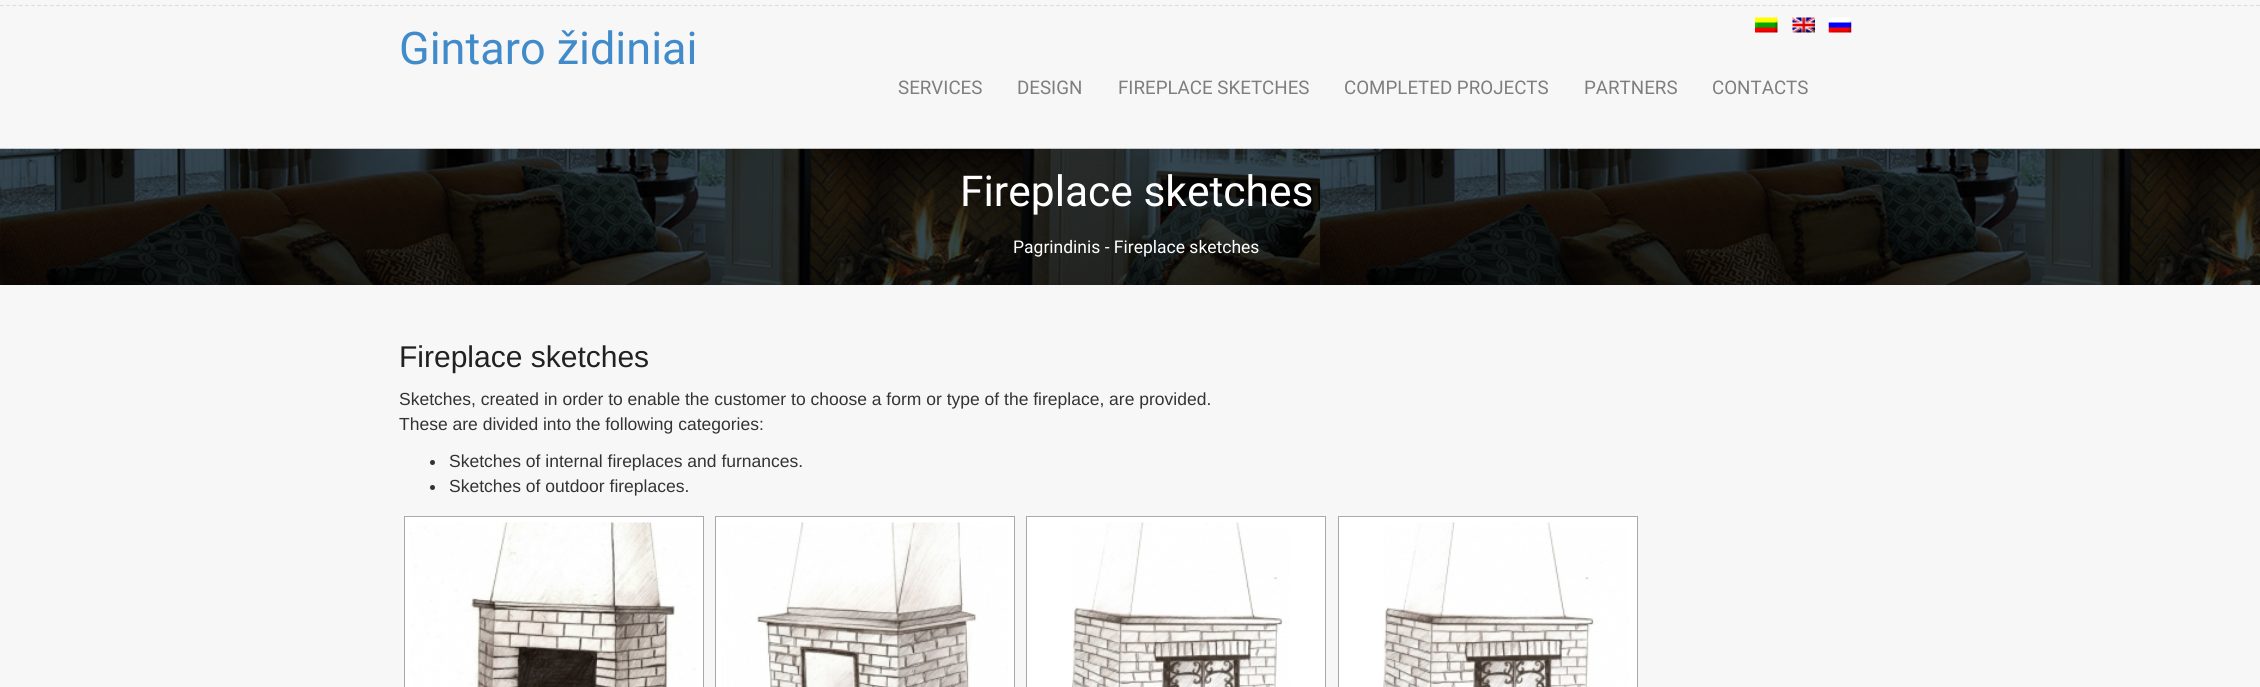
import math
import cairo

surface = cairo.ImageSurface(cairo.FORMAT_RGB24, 2260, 687)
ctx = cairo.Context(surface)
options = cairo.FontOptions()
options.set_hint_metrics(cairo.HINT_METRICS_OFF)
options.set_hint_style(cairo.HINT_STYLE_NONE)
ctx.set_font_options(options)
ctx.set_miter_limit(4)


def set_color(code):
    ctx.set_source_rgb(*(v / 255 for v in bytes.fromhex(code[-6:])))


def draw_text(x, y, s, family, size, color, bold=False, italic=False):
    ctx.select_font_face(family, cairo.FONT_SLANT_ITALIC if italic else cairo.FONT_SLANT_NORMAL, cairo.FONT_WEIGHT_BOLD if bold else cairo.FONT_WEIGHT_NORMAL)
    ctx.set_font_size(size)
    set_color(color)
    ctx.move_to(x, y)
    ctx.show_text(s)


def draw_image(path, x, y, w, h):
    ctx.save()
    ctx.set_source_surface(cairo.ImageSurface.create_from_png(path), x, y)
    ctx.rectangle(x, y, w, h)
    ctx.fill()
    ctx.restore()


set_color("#f7f7f7")
ctx.paint()
ctx.new_path()
ctx.move_to(0, 5.5)
ctx.line_to(2260, 5.5)
set_color("#dddddd")
ctx.set_line_width(1.2)
ctx.set_dash([3.75, 2.5])
ctx.stroke()
draw_image("assets/img1.png", 1755, 17, 23, 16)
draw_image("assets/img2.png", 1792, 17, 23, 16)
draw_image("assets/img3.png", 1828, 17, 24, 16)
draw_text(399, 64, "Gintaro židiniai", "Roboto", 45, "#428bca")
draw_text(898, 94, "SERVICES", "Roboto", 18.75, "#7e7e7e")
draw_text(1017, 94, "DESIGN", "Roboto", 18.75, "#7e7e7e")
draw_text(1118, 94, "FIREPLACE SKETCHES", "Roboto", 18.75, "#7e7e7e")
draw_text(1344, 94, "COMPLETED PROJECTS", "Roboto", 18.75, "#7e7e7e")
draw_text(1584, 94, "PARTNERS", "Roboto", 18.75, "#7e7e7e")
draw_text(1712, 94, "CONTACTS", "Roboto", 18.75, "#7e7e7e")
draw_image("assets/img4.png", 0, 148, 2260, 137)
draw_text(960, 206, "Fireplace sketches", "Roboto", 42.5, "#ffffff")
draw_text(1013, 253, "Pagrindinis - Fireplace sketches", "Roboto", 17.5, "#ffffff")
draw_text(399, 367, "Fireplace sketches", "Liberation Sans", 30, "#212121")
draw_text(399, 405, "Sketches, created in order to enable the customer to choose a form or type of the fireplace, are provided.", "Liberation Sans", 17.5, "#333333")
draw_text(399, 430, "These are divided into the following categories:", "Liberation Sans", 17.5, "#333333")
ctx.new_path()
ctx.arc(432.5, 462.5, 2.5, 0, 2 * math.pi)
ctx.fill()
draw_text(449, 467, "Sketches of internal fireplaces and furnances.", "Liberation Sans", 17.5, "#333333")
ctx.new_path()
ctx.arc(432.5, 487.5, 2.5, 0, 2 * math.pi)
ctx.fill()
draw_text(449, 492, "Sketches of outdoor fireplaces.", "Liberation Sans", 17.5, "#333333")
set_color("#ffffff")
ctx.rectangle(404.5, 516.5, 299, 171)
ctx.fill_preserve()
set_color("#a9a9a9")
ctx.set_line_width(1)
ctx.set_dash([])
ctx.stroke()
draw_image("assets/img5.png", 410, 522, 286, 165)
set_color("#ffffff")
ctx.rectangle(715.5, 516.5, 299, 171)
ctx.fill_preserve()
set_color("#a9a9a9")
ctx.stroke()
draw_image("assets/img6.png", 721, 522, 287, 165)
set_color("#ffffff")
ctx.rectangle(1026.5, 516.5, 299, 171)
ctx.fill_preserve()
set_color("#a9a9a9")
ctx.stroke()
draw_image("assets/img7.png", 1072, 522, 218, 165)
set_color("#ffffff")
ctx.rectangle(1338.5, 516.5, 299, 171)
ctx.fill_preserve()
set_color("#a9a9a9")
ctx.stroke()
draw_image("assets/img8.png", 1383, 522, 246, 165)
surface.write_to_png("output.png")
